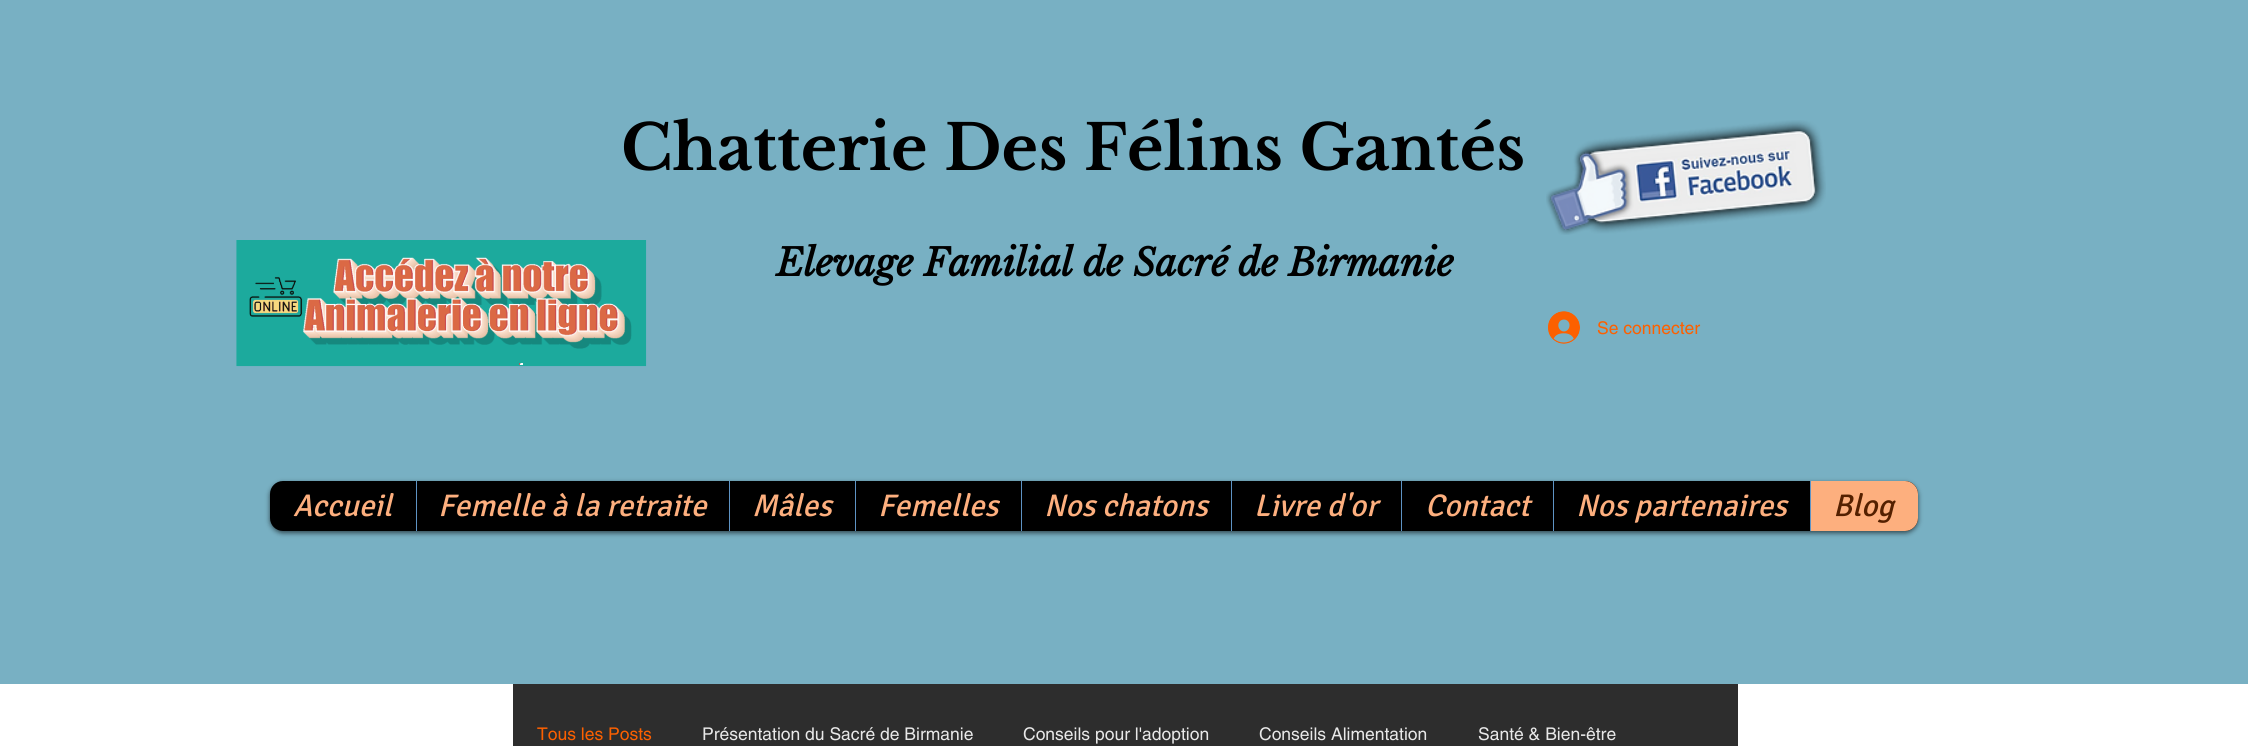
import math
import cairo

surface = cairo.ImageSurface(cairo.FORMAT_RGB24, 2248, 746)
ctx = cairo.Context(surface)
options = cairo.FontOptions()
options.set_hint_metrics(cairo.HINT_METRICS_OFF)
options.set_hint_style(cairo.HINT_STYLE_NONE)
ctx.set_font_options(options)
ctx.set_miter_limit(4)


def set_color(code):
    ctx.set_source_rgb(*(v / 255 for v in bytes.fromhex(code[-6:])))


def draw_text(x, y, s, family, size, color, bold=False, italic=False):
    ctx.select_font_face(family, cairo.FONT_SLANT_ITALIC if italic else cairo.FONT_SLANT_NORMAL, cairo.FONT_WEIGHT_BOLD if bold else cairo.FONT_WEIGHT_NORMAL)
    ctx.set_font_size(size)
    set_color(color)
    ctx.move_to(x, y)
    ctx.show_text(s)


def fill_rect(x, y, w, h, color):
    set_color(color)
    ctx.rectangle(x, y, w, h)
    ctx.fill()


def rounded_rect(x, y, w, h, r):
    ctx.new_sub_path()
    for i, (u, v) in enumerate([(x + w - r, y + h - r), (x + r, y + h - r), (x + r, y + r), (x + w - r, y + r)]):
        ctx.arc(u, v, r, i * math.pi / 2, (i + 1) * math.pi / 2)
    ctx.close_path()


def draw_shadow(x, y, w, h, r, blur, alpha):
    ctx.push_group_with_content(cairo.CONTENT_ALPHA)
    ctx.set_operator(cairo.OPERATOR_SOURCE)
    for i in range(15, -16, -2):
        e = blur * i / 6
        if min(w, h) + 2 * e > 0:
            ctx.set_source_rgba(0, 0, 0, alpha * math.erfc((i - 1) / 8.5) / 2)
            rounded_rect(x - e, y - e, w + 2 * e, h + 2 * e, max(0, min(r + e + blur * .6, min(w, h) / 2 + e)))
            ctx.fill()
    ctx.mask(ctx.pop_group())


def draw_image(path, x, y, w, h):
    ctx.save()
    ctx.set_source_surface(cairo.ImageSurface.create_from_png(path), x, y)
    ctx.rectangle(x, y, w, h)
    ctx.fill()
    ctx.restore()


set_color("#ffffff")
ctx.paint()
fill_rect(0, 0, 2248, 684, "#78b0c3")
draw_text(621, 170, "Chatterie Des Félins Gantés", "Libre Baskerville", 62.5, "#000000", bold=True)
draw_image("assets/img1.png", 1546, 120, 280, 115)
draw_image("assets/img2.png", 236, 240, 411, 127)
draw_text(776, 276, "Elevage Familial de Sacré de Birmanie", "Libre Baskerville", 37.5, "#000000", bold=True, italic=True)
draw_image("assets/img3.png", 1548, 311, 32, 33)
draw_text(1597, 334, "Se connecter", "helvetica", 17.5, "#fc6000")
set_color("#000000")
draw_shadow(270, 483, 1648, 50, 13, 2.5, 0.6)
set_color("#000000")
rounded_rect(270, 481, 1648, 50, 13)
ctx.fill()
draw_text(293, 516, "Accueil", "Signika", 31.25, "#fdaf7e", italic=True)
fill_rect(416, 481, 1, 50, "#5e93c4")
draw_text(438, 516, "Femelle à la retraite", "Signika", 31.25, "#fdaf7e", italic=True)
fill_rect(729, 481, 1, 50, "#5e93c4")
draw_text(752, 516, "Mâles", "Signika", 31.25, "#fdaf7e", italic=True)
fill_rect(855, 481, 1, 50, "#5e93c4")
draw_text(878, 516, "Femelles", "Signika", 31.25, "#fdaf7e", italic=True)
fill_rect(1021, 481, 1, 50, "#5e93c4")
draw_text(1044, 516, "Nos chatons", "Signika", 31.25, "#fdaf7e", italic=True)
fill_rect(1231, 481, 1, 50, "#5e93c4")
draw_text(1254, 516, "Livre d'or", "Signika", 31.25, "#fdaf7e", italic=True)
fill_rect(1401, 481, 1, 50, "#5e93c4")
draw_text(1425, 516, "Contact", "Signika", 31.25, "#fdaf7e", italic=True)
fill_rect(1553, 481, 1, 50, "#5e93c4")
draw_text(1576, 516, "Nos partenaires", "Signika", 31.25, "#fdaf7e", italic=True)
ctx.new_path()
ctx.move_to(1810, 481)
ctx.line_to(1905, 481)
ctx.curve_to(1912, 481, 1918, 487, 1918, 494)
ctx.line_to(1918, 518)
ctx.curve_to(1918, 525, 1912, 531, 1905, 531)
ctx.line_to(1810, 531)
ctx.close_path()
ctx.fill()
fill_rect(1810, 481, 1, 50, "#5e93c4")
draw_text(1833, 516, "Blog", "Signika", 31.25, "#542000", italic=True)
fill_rect(513, 684, 1225, 62, "#2d2d2d")
draw_text(537, 740, "Tous les Posts", "helvetica", 17.5, "#fc6000")
draw_text(702, 740, "Présentation du Sacré de Birmanie", "helvetica", 17.5, "#e8e8e8")
draw_text(1023, 740, "Conseils pour l'adoption", "helvetica", 17.5, "#e8e8e8")
draw_text(1259, 740, "Conseils Alimentation", "helvetica", 17.5, "#e8e8e8")
draw_text(1478, 740, "Santé & Bien-être", "helvetica", 17.5, "#e8e8e8")
surface.write_to_png("output.png")
